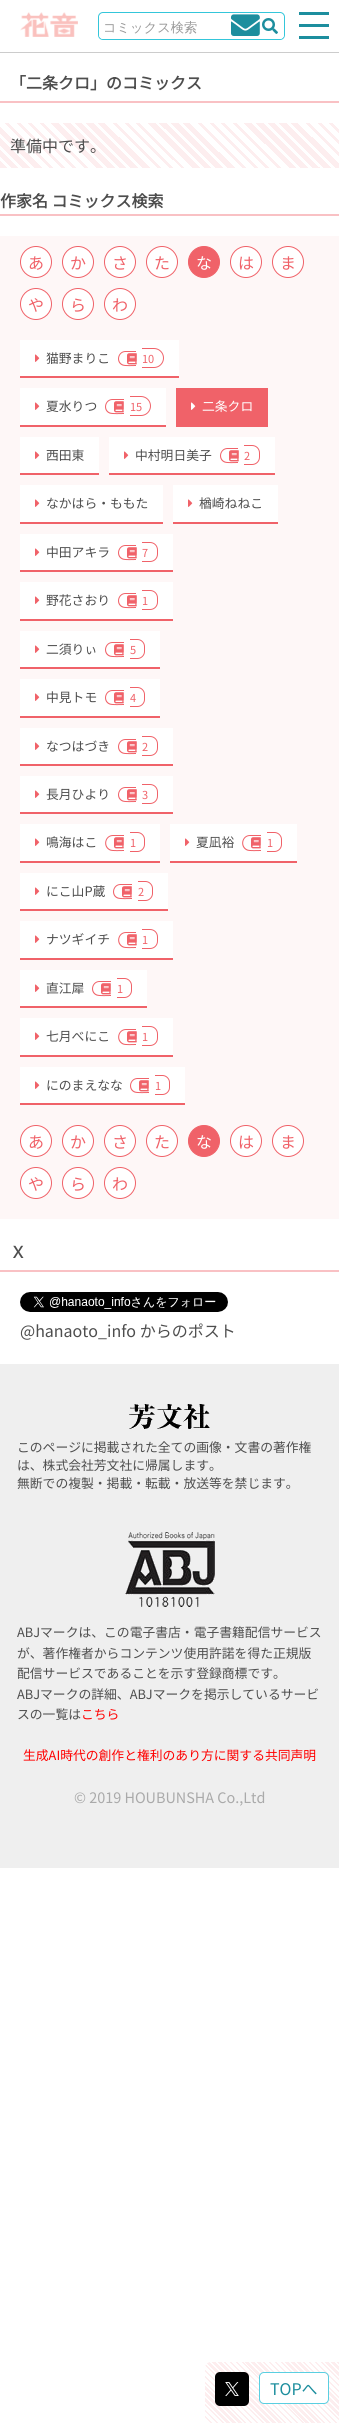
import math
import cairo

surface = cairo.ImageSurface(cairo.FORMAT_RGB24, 339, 2423)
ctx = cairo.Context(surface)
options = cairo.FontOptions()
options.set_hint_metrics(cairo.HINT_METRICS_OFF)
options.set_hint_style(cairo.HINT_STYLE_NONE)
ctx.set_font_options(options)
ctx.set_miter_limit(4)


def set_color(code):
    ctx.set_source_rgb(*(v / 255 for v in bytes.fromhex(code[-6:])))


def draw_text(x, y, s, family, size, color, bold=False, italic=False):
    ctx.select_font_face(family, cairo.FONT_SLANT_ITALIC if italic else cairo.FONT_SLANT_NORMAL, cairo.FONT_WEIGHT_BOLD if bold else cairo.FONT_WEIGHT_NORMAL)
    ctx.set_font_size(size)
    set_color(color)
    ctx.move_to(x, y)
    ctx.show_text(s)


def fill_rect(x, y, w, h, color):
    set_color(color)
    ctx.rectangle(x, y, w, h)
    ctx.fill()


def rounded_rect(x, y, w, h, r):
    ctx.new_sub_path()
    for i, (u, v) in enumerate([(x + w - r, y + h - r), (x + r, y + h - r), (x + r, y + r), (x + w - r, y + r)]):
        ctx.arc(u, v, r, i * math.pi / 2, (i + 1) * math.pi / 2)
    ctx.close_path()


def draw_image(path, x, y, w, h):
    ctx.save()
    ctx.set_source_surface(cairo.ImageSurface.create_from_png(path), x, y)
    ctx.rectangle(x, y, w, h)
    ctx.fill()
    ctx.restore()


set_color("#ffffff")
ctx.paint()
fill_rect(0, 52, 339, 1, "#cccccc")
draw_image("assets/img1.png", 20, 12, 58, 25)
rounded_rect(98.5, 12.5, 186, 27, 4.5)
set_color("#34c6da")
ctx.set_line_width(1)
ctx.stroke()
ctx.save()
rounded_rect(99, 13, 185, 26, 4)
ctx.clip()
set_color("#ffffff")
ctx.new_path()
ctx.move_to(99, 16)
ctx.line_to(284, 16)
ctx.line_to(284, 35)
ctx.curve_to(284, 37, 282, 39, 280, 39)
ctx.line_to(103, 39)
ctx.curve_to(101, 39, 99, 37, 99, 35)
ctx.close_path()
ctx.fill()
ctx.restore()
draw_text(103, 32, "コミックス検索", "WenQuanYi Zen Hei Medium", 13.25, "#999999")
draw_image("assets/img2.png", 262, 18, 16, 16)
draw_image("assets/img3.png", 231, 14, 29, 22)
fill_rect(299, 12, 30, 3, "#1d8e9e")
fill_rect(299, 24, 30, 3, "#1d8e9e")
fill_rect(299, 36, 30, 3, "#1d8e9e")
fill_rect(0, 101, 339, 2, "#f9c1c4")
draw_text(10, 89, "「二条クロ」のコミックス", "Noto Sans JP", 16, "#4e4e4e", bold=True)
gradient = cairo.LinearGradient(74, 242, 266, 49)
gradient.add_color_stop_rgba(0, 0.992, 0.933, 0.937, 1)
gradient.add_color_stop_rgba(0.01, 0.992, 0.933, 0.937, 1)
gradient.add_color_stop_rgba(0.01, 1, 1, 1, 1)
gradient.add_color_stop_rgba(0.01, 1, 1, 1, 1)
gradient.add_color_stop_rgba(0.01, 0.992, 0.933, 0.937, 1)
gradient.add_color_stop_rgba(0.02, 0.992, 0.933, 0.937, 1)
gradient.add_color_stop_rgba(0.02, 1, 1, 1, 1)
gradient.add_color_stop_rgba(0.03, 1, 1, 1, 1)
gradient.add_color_stop_rgba(0.03, 0.992, 0.933, 0.937, 1)
gradient.add_color_stop_rgba(0.04, 0.992, 0.933, 0.937, 1)
gradient.add_color_stop_rgba(0.04, 1, 1, 1, 1)
gradient.add_color_stop_rgba(0.04, 1, 1, 1, 1)
gradient.add_color_stop_rgba(0.04, 0.992, 0.933, 0.937, 1)
gradient.add_color_stop_rgba(0.05, 0.992, 0.933, 0.937, 1)
gradient.add_color_stop_rgba(0.05, 1, 1, 1, 1)
gradient.add_color_stop_rgba(0.06, 1, 1, 1, 1)
gradient.add_color_stop_rgba(0.06, 0.992, 0.933, 0.937, 1)
gradient.add_color_stop_rgba(0.07, 0.992, 0.933, 0.937, 1)
gradient.add_color_stop_rgba(0.07, 1, 1, 1, 1)
gradient.add_color_stop_rgba(0.07, 1, 1, 1, 1)
gradient.add_color_stop_rgba(0.07, 0.992, 0.933, 0.937, 1)
gradient.add_color_stop_rgba(0.08, 0.992, 0.933, 0.937, 1)
gradient.add_color_stop_rgba(0.08, 1, 1, 1, 1)
gradient.add_color_stop_rgba(0.09, 1, 1, 1, 1)
gradient.add_color_stop_rgba(0.09, 0.992, 0.933, 0.937, 1)
gradient.add_color_stop_rgba(0.1, 0.992, 0.933, 0.937, 1)
gradient.add_color_stop_rgba(0.1, 1, 1, 1, 1)
gradient.add_color_stop_rgba(0.1, 1, 1, 1, 1)
gradient.add_color_stop_rgba(0.1, 0.992, 0.933, 0.937, 1)
gradient.add_color_stop_rgba(0.11, 0.992, 0.933, 0.937, 1)
gradient.add_color_stop_rgba(0.11, 1, 1, 1, 1)
gradient.add_color_stop_rgba(0.12, 1, 1, 1, 1)
gradient.add_color_stop_rgba(0.12, 0.992, 0.933, 0.937, 1)
gradient.add_color_stop_rgba(0.12, 0.992, 0.933, 0.937, 1)
gradient.add_color_stop_rgba(0.12, 1, 1, 1, 1)
gradient.add_color_stop_rgba(0.13, 1, 1, 1, 1)
gradient.add_color_stop_rgba(0.13, 0.992, 0.933, 0.937, 1)
gradient.add_color_stop_rgba(0.14, 0.992, 0.933, 0.937, 1)
gradient.add_color_stop_rgba(0.14, 1, 1, 1, 1)
gradient.add_color_stop_rgba(0.15, 1, 1, 1, 1)
gradient.add_color_stop_rgba(0.15, 0.992, 0.933, 0.937, 1)
gradient.add_color_stop_rgba(0.15, 0.992, 0.933, 0.937, 1)
gradient.add_color_stop_rgba(0.15, 1, 1, 1, 1)
gradient.add_color_stop_rgba(0.16, 1, 1, 1, 1)
gradient.add_color_stop_rgba(0.16, 0.992, 0.933, 0.937, 1)
gradient.add_color_stop_rgba(0.17, 0.992, 0.933, 0.937, 1)
gradient.add_color_stop_rgba(0.17, 1, 1, 1, 1)
gradient.add_color_stop_rgba(0.18, 1, 1, 1, 1)
gradient.add_color_stop_rgba(0.18, 0.992, 0.933, 0.937, 1)
gradient.add_color_stop_rgba(0.18, 0.992, 0.933, 0.937, 1)
gradient.add_color_stop_rgba(0.18, 1, 1, 1, 1)
gradient.add_color_stop_rgba(0.19, 1, 1, 1, 1)
gradient.add_color_stop_rgba(0.19, 0.992, 0.933, 0.937, 1)
gradient.add_color_stop_rgba(0.2, 0.992, 0.933, 0.937, 1)
gradient.add_color_stop_rgba(0.2, 1, 1, 1, 1)
gradient.add_color_stop_rgba(0.21, 1, 1, 1, 1)
gradient.add_color_stop_rgba(0.21, 0.992, 0.933, 0.937, 1)
gradient.add_color_stop_rgba(0.21, 0.992, 0.933, 0.937, 1)
gradient.add_color_stop_rgba(0.21, 1, 1, 1, 1)
gradient.add_color_stop_rgba(0.22, 1, 1, 1, 1)
gradient.add_color_stop_rgba(0.22, 0.992, 0.933, 0.937, 1)
gradient.add_color_stop_rgba(0.23, 0.992, 0.933, 0.937, 1)
gradient.add_color_stop_rgba(0.23, 1, 1, 1, 1)
gradient.add_color_stop_rgba(0.24, 1, 1, 1, 1)
gradient.add_color_stop_rgba(0.24, 0.992, 0.933, 0.937, 1)
gradient.add_color_stop_rgba(0.24, 0.992, 0.933, 0.937, 1)
gradient.add_color_stop_rgba(0.24, 1, 1, 1, 1)
gradient.add_color_stop_rgba(0.25, 1, 1, 1, 1)
gradient.add_color_stop_rgba(0.25, 0.992, 0.933, 0.937, 1)
gradient.add_color_stop_rgba(0.26, 0.992, 0.933, 0.937, 1)
gradient.add_color_stop_rgba(0.26, 1, 1, 1, 1)
gradient.add_color_stop_rgba(0.26, 1, 1, 1, 1)
gradient.add_color_stop_rgba(0.26, 0.992, 0.933, 0.937, 1)
gradient.add_color_stop_rgba(0.27, 0.992, 0.933, 0.937, 1)
gradient.add_color_stop_rgba(0.27, 1, 1, 1, 1)
gradient.add_color_stop_rgba(0.28, 1, 1, 1, 1)
gradient.add_color_stop_rgba(0.28, 0.992, 0.933, 0.937, 1)
gradient.add_color_stop_rgba(0.29, 0.992, 0.933, 0.937, 1)
gradient.add_color_stop_rgba(0.29, 1, 1, 1, 1)
gradient.add_color_stop_rgba(0.29, 1, 1, 1, 1)
gradient.add_color_stop_rgba(0.29, 0.992, 0.933, 0.937, 1)
gradient.add_color_stop_rgba(0.3, 0.992, 0.933, 0.937, 1)
gradient.add_color_stop_rgba(0.3, 1, 1, 1, 1)
gradient.add_color_stop_rgba(0.31, 1, 1, 1, 1)
gradient.add_color_stop_rgba(0.31, 0.992, 0.933, 0.937, 1)
gradient.add_color_stop_rgba(0.32, 0.992, 0.933, 0.937, 1)
gradient.add_color_stop_rgba(0.32, 1, 1, 1, 1)
gradient.add_color_stop_rgba(0.32, 1, 1, 1, 1)
gradient.add_color_stop_rgba(0.32, 0.992, 0.933, 0.937, 1)
gradient.add_color_stop_rgba(0.33, 0.992, 0.933, 0.937, 1)
gradient.add_color_stop_rgba(0.33, 1, 1, 1, 1)
gradient.add_color_stop_rgba(0.34, 1, 1, 1, 1)
gradient.add_color_stop_rgba(0.34, 0.992, 0.933, 0.937, 1)
gradient.add_color_stop_rgba(0.35, 0.992, 0.933, 0.937, 1)
gradient.add_color_stop_rgba(0.35, 1, 1, 1, 1)
gradient.add_color_stop_rgba(0.35, 1, 1, 1, 1)
gradient.add_color_stop_rgba(0.35, 0.992, 0.933, 0.937, 1)
gradient.add_color_stop_rgba(0.36, 0.992, 0.933, 0.937, 1)
gradient.add_color_stop_rgba(0.36, 1, 1, 1, 1)
gradient.add_color_stop_rgba(0.37, 1, 1, 1, 1)
gradient.add_color_stop_rgba(0.37, 0.992, 0.933, 0.937, 1)
gradient.add_color_stop_rgba(0.38, 0.992, 0.933, 0.937, 1)
gradient.add_color_stop_rgba(0.38, 1, 1, 1, 1)
gradient.add_color_stop_rgba(0.38, 1, 1, 1, 1)
gradient.add_color_stop_rgba(0.38, 0.992, 0.933, 0.937, 1)
gradient.add_color_stop_rgba(0.39, 0.992, 0.933, 0.937, 1)
gradient.add_color_stop_rgba(0.39, 1, 1, 1, 1)
gradient.add_color_stop_rgba(0.4, 1, 1, 1, 1)
gradient.add_color_stop_rgba(0.4, 0.992, 0.933, 0.937, 1)
gradient.add_color_stop_rgba(0.4, 0.992, 0.933, 0.937, 1)
gradient.add_color_stop_rgba(0.4, 1, 1, 1, 1)
gradient.add_color_stop_rgba(0.41, 1, 1, 1, 1)
gradient.add_color_stop_rgba(0.41, 0.992, 0.933, 0.937, 1)
gradient.add_color_stop_rgba(0.42, 0.992, 0.933, 0.937, 1)
gradient.add_color_stop_rgba(0.42, 1, 1, 1, 1)
gradient.add_color_stop_rgba(0.43, 1, 1, 1, 1)
gradient.add_color_stop_rgba(0.43, 0.992, 0.933, 0.937, 1)
gradient.add_color_stop_rgba(0.43, 0.992, 0.933, 0.937, 1)
gradient.add_color_stop_rgba(0.43, 1, 1, 1, 1)
gradient.add_color_stop_rgba(0.44, 1, 1, 1, 1)
gradient.add_color_stop_rgba(0.44, 0.992, 0.933, 0.937, 1)
gradient.add_color_stop_rgba(0.45, 0.992, 0.933, 0.937, 1)
gradient.add_color_stop_rgba(0.45, 1, 1, 1, 1)
gradient.add_color_stop_rgba(0.46, 1, 1, 1, 1)
gradient.add_color_stop_rgba(0.46, 0.992, 0.933, 0.937, 1)
gradient.add_color_stop_rgba(0.46, 0.992, 0.933, 0.937, 1)
gradient.add_color_stop_rgba(0.46, 1, 1, 1, 1)
gradient.add_color_stop_rgba(0.47, 1, 1, 1, 1)
gradient.add_color_stop_rgba(0.47, 0.992, 0.933, 0.937, 1)
gradient.add_color_stop_rgba(0.48, 0.992, 0.933, 0.937, 1)
gradient.add_color_stop_rgba(0.48, 1, 1, 1, 1)
gradient.add_color_stop_rgba(0.49, 1, 1, 1, 1)
gradient.add_color_stop_rgba(0.49, 0.992, 0.933, 0.937, 1)
gradient.add_color_stop_rgba(0.49, 0.992, 0.933, 0.937, 1)
gradient.add_color_stop_rgba(0.49, 1, 1, 1, 1)
gradient.add_color_stop_rgba(0.5, 1, 1, 1, 1)
gradient.add_color_stop_rgba(0.5, 0.992, 0.933, 0.937, 1)
gradient.add_color_stop_rgba(0.51, 0.992, 0.933, 0.937, 1)
gradient.add_color_stop_rgba(0.51, 1, 1, 1, 1)
gradient.add_color_stop_rgba(0.51, 1, 1, 1, 1)
gradient.add_color_stop_rgba(0.51, 0.992, 0.933, 0.937, 1)
gradient.add_color_stop_rgba(0.52, 0.992, 0.933, 0.937, 1)
gradient.add_color_stop_rgba(0.52, 1, 1, 1, 1)
gradient.add_color_stop_rgba(0.53, 1, 1, 1, 1)
gradient.add_color_stop_rgba(0.53, 0.992, 0.933, 0.937, 1)
gradient.add_color_stop_rgba(0.54, 0.992, 0.933, 0.937, 1)
gradient.add_color_stop_rgba(0.54, 1, 1, 1, 1)
gradient.add_color_stop_rgba(0.54, 1, 1, 1, 1)
gradient.add_color_stop_rgba(0.54, 0.992, 0.933, 0.937, 1)
gradient.add_color_stop_rgba(0.55, 0.992, 0.933, 0.937, 1)
gradient.add_color_stop_rgba(0.55, 1, 1, 1, 1)
gradient.add_color_stop_rgba(0.56, 1, 1, 1, 1)
gradient.add_color_stop_rgba(0.56, 0.992, 0.933, 0.937, 1)
gradient.add_color_stop_rgba(0.57, 0.992, 0.933, 0.937, 1)
gradient.add_color_stop_rgba(0.57, 1, 1, 1, 1)
gradient.add_color_stop_rgba(0.57, 1, 1, 1, 1)
gradient.add_color_stop_rgba(0.57, 0.992, 0.933, 0.937, 1)
gradient.add_color_stop_rgba(0.58, 0.992, 0.933, 0.937, 1)
gradient.add_color_stop_rgba(0.58, 1, 1, 1, 1)
gradient.add_color_stop_rgba(0.59, 1, 1, 1, 1)
gradient.add_color_stop_rgba(0.59, 0.992, 0.933, 0.937, 1)
gradient.add_color_stop_rgba(0.6, 0.992, 0.933, 0.937, 1)
gradient.add_color_stop_rgba(0.6, 1, 1, 1, 1)
gradient.add_color_stop_rgba(0.6, 1, 1, 1, 1)
gradient.add_color_stop_rgba(0.6, 0.992, 0.933, 0.937, 1)
gradient.add_color_stop_rgba(0.61, 0.992, 0.933, 0.937, 1)
gradient.add_color_stop_rgba(0.61, 1, 1, 1, 1)
gradient.add_color_stop_rgba(0.62, 1, 1, 1, 1)
gradient.add_color_stop_rgba(0.62, 0.992, 0.933, 0.937, 1)
gradient.add_color_stop_rgba(0.62, 0.992, 0.933, 0.937, 1)
gradient.add_color_stop_rgba(0.62, 1, 1, 1, 1)
gradient.add_color_stop_rgba(0.63, 1, 1, 1, 1)
gradient.add_color_stop_rgba(0.63, 0.992, 0.933, 0.937, 1)
gradient.add_color_stop_rgba(0.64, 0.992, 0.933, 0.937, 1)
gradient.add_color_stop_rgba(0.64, 1, 1, 1, 1)
gradient.add_color_stop_rgba(0.65, 1, 1, 1, 1)
gradient.add_color_stop_rgba(0.65, 0.992, 0.933, 0.937, 1)
gradient.add_color_stop_rgba(0.65, 0.992, 0.933, 0.937, 1)
gradient.add_color_stop_rgba(0.65, 1, 1, 1, 1)
gradient.add_color_stop_rgba(0.66, 1, 1, 1, 1)
gradient.add_color_stop_rgba(0.66, 0.992, 0.933, 0.937, 1)
gradient.add_color_stop_rgba(0.67, 0.992, 0.933, 0.937, 1)
gradient.add_color_stop_rgba(0.67, 1, 1, 1, 1)
gradient.add_color_stop_rgba(0.68, 1, 1, 1, 1)
gradient.add_color_stop_rgba(0.68, 0.992, 0.933, 0.937, 1)
gradient.add_color_stop_rgba(0.68, 0.992, 0.933, 0.937, 1)
gradient.add_color_stop_rgba(0.68, 1, 1, 1, 1)
gradient.add_color_stop_rgba(0.69, 1, 1, 1, 1)
gradient.add_color_stop_rgba(0.69, 0.992, 0.933, 0.937, 1)
gradient.add_color_stop_rgba(0.7, 0.992, 0.933, 0.937, 1)
gradient.add_color_stop_rgba(0.7, 1, 1, 1, 1)
gradient.add_color_stop_rgba(0.71, 1, 1, 1, 1)
gradient.add_color_stop_rgba(0.71, 0.992, 0.933, 0.937, 1)
gradient.add_color_stop_rgba(0.71, 0.992, 0.933, 0.937, 1)
gradient.add_color_stop_rgba(0.71, 1, 1, 1, 1)
gradient.add_color_stop_rgba(0.72, 1, 1, 1, 1)
gradient.add_color_stop_rgba(0.72, 0.992, 0.933, 0.937, 1)
gradient.add_color_stop_rgba(0.73, 0.992, 0.933, 0.937, 1)
gradient.add_color_stop_rgba(0.73, 1, 1, 1, 1)
gradient.add_color_stop_rgba(0.74, 1, 1, 1, 1)
gradient.add_color_stop_rgba(0.74, 0.992, 0.933, 0.937, 1)
gradient.add_color_stop_rgba(0.74, 0.992, 0.933, 0.937, 1)
gradient.add_color_stop_rgba(0.74, 1, 1, 1, 1)
gradient.add_color_stop_rgba(0.75, 1, 1, 1, 1)
gradient.add_color_stop_rgba(0.75, 0.992, 0.933, 0.937, 1)
gradient.add_color_stop_rgba(0.76, 0.992, 0.933, 0.937, 1)
gradient.add_color_stop_rgba(0.76, 1, 1, 1, 1)
gradient.add_color_stop_rgba(0.76, 1, 1, 1, 1)
gradient.add_color_stop_rgba(0.76, 0.992, 0.933, 0.937, 1)
gradient.add_color_stop_rgba(0.77, 0.992, 0.933, 0.937, 1)
gradient.add_color_stop_rgba(0.77, 1, 1, 1, 1)
gradient.add_color_stop_rgba(0.78, 1, 1, 1, 1)
gradient.add_color_stop_rgba(0.78, 0.992, 0.933, 0.937, 1)
gradient.add_color_stop_rgba(0.79, 0.992, 0.933, 0.937, 1)
gradient.add_color_stop_rgba(0.79, 1, 1, 1, 1)
gradient.add_color_stop_rgba(0.79, 1, 1, 1, 1)
gradient.add_color_stop_rgba(0.79, 0.992, 0.933, 0.937, 1)
gradient.add_color_stop_rgba(0.8, 0.992, 0.933, 0.937, 1)
gradient.add_color_stop_rgba(0.8, 1, 1, 1, 1)
gradient.add_color_stop_rgba(0.81, 1, 1, 1, 1)
gradient.add_color_stop_rgba(0.81, 0.992, 0.933, 0.937, 1)
gradient.add_color_stop_rgba(0.82, 0.992, 0.933, 0.937, 1)
gradient.add_color_stop_rgba(0.82, 1, 1, 1, 1)
gradient.add_color_stop_rgba(0.82, 1, 1, 1, 1)
gradient.add_color_stop_rgba(0.82, 0.992, 0.933, 0.937, 1)
gradient.add_color_stop_rgba(0.83, 0.992, 0.933, 0.937, 1)
gradient.add_color_stop_rgba(0.83, 1, 1, 1, 1)
gradient.add_color_stop_rgba(0.84, 1, 1, 1, 1)
gradient.add_color_stop_rgba(0.84, 0.992, 0.933, 0.937, 1)
gradient.add_color_stop_rgba(0.85, 0.992, 0.933, 0.937, 1)
gradient.add_color_stop_rgba(0.85, 1, 1, 1, 1)
gradient.add_color_stop_rgba(0.85, 1, 1, 1, 1)
gradient.add_color_stop_rgba(0.85, 0.992, 0.933, 0.937, 1)
gradient.add_color_stop_rgba(0.86, 0.992, 0.933, 0.937, 1)
gradient.add_color_stop_rgba(0.86, 1, 1, 1, 1)
gradient.add_color_stop_rgba(0.87, 1, 1, 1, 1)
gradient.add_color_stop_rgba(0.87, 0.992, 0.933, 0.937, 1)
gradient.add_color_stop_rgba(0.88, 0.992, 0.933, 0.937, 1)
gradient.add_color_stop_rgba(0.88, 1, 1, 1, 1)
gradient.add_color_stop_rgba(0.88, 1, 1, 1, 1)
gradient.add_color_stop_rgba(0.88, 0.992, 0.933, 0.937, 1)
gradient.add_color_stop_rgba(0.89, 0.992, 0.933, 0.937, 1)
gradient.add_color_stop_rgba(0.89, 1, 1, 1, 1)
gradient.add_color_stop_rgba(0.9, 1, 1, 1, 1)
gradient.add_color_stop_rgba(0.9, 0.992, 0.933, 0.937, 1)
gradient.add_color_stop_rgba(0.9, 0.992, 0.933, 0.937, 1)
gradient.add_color_stop_rgba(0.9, 1, 1, 1, 1)
gradient.add_color_stop_rgba(0.91, 1, 1, 1, 1)
gradient.add_color_stop_rgba(0.91, 0.992, 0.933, 0.937, 1)
gradient.add_color_stop_rgba(0.92, 0.992, 0.933, 0.937, 1)
gradient.add_color_stop_rgba(0.92, 1, 1, 1, 1)
gradient.add_color_stop_rgba(0.93, 1, 1, 1, 1)
gradient.add_color_stop_rgba(0.93, 0.992, 0.933, 0.937, 1)
gradient.add_color_stop_rgba(0.93, 0.992, 0.933, 0.937, 1)
gradient.add_color_stop_rgba(0.93, 1, 1, 1, 1)
gradient.add_color_stop_rgba(0.94, 1, 1, 1, 1)
gradient.add_color_stop_rgba(0.94, 0.992, 0.933, 0.937, 1)
gradient.add_color_stop_rgba(0.95, 0.992, 0.933, 0.937, 1)
gradient.add_color_stop_rgba(0.95, 1, 1, 1, 1)
gradient.add_color_stop_rgba(0.96, 1, 1, 1, 1)
gradient.add_color_stop_rgba(0.96, 0.992, 0.933, 0.937, 1)
gradient.add_color_stop_rgba(0.96, 0.992, 0.933, 0.937, 1)
gradient.add_color_stop_rgba(0.96, 1, 1, 1, 1)
gradient.add_color_stop_rgba(0.97, 1, 1, 1, 1)
gradient.add_color_stop_rgba(0.97, 0.992, 0.933, 0.937, 1)
gradient.add_color_stop_rgba(0.98, 0.992, 0.933, 0.937, 1)
gradient.add_color_stop_rgba(0.98, 1, 1, 1, 1)
gradient.add_color_stop_rgba(0.99, 1, 1, 1, 1)
gradient.add_color_stop_rgba(0.99, 0.992, 0.933, 0.937, 1)
gradient.add_color_stop_rgba(0.99, 0.992, 0.933, 0.937, 1)
gradient.add_color_stop_rgba(0.99, 1, 1, 1, 1)
gradient.add_color_stop_rgba(1, 1, 1, 1, 1)
ctx.set_source(gradient)
ctx.rectangle(0, 123, 339, 45)
ctx.fill()
draw_text(10, 152, "準備中です。", "Noto Sans JP Thin", 16, "#4e4e4e")
fill_rect(0, 214, 339, 2, "#f9c1c4")
draw_text(0, 207, "作家名 コミックス検索", "Noto Sans JP", 16, "#4e4e4e", bold=True)
fill_rect(0, 236, 339, 983, "#fef7f7")
set_color("#ffffff")
ctx.new_path()
ctx.arc(36, 262, 15.5, 0, 2 * math.pi)
ctx.fill_preserve()
set_color("#f06269")
ctx.stroke()
draw_text(28, 269, "あ", "Noto Sans JP Thin", 16, "#f06269")
set_color("#ffffff")
ctx.new_path()
ctx.arc(78, 262, 15.5, 0, 2 * math.pi)
ctx.fill_preserve()
set_color("#f06269")
ctx.stroke()
draw_text(70, 269, "か", "Noto Sans JP Thin", 16, "#f06269")
set_color("#ffffff")
ctx.new_path()
ctx.arc(120, 262, 15.5, 0, 2 * math.pi)
ctx.fill_preserve()
set_color("#f06269")
ctx.stroke()
draw_text(112, 269, "さ", "Noto Sans JP Thin", 16, "#f06269")
set_color("#ffffff")
ctx.new_path()
ctx.arc(162, 262, 15.5, 0, 2 * math.pi)
ctx.fill_preserve()
set_color("#f06269")
ctx.stroke()
draw_text(154, 269, "た", "Noto Sans JP Thin", 16, "#f06269")
ctx.new_path()
ctx.arc(204, 262, 15.5, 0, 2 * math.pi)
ctx.fill_preserve()
ctx.stroke()
draw_text(196, 269, "な", "Noto Sans JP Thin", 16, "#ffffff")
ctx.new_path()
ctx.arc(246, 262, 15.5, 0, 2 * math.pi)
ctx.fill_preserve()
set_color("#f06269")
ctx.stroke()
draw_text(238, 269, "は", "Noto Sans JP Thin", 16, "#f06269")
set_color("#ffffff")
ctx.new_path()
ctx.arc(288, 262, 15.5, 0, 2 * math.pi)
ctx.fill_preserve()
set_color("#f06269")
ctx.stroke()
draw_text(280, 269, "ま", "Noto Sans JP Thin", 16, "#f06269")
set_color("#ffffff")
ctx.new_path()
ctx.arc(36, 304, 15.5, 0, 2 * math.pi)
ctx.fill_preserve()
set_color("#f06269")
ctx.stroke()
draw_text(28, 311, "や", "Noto Sans JP Thin", 16, "#f06269")
set_color("#ffffff")
ctx.new_path()
ctx.arc(78, 304, 15.5, 0, 2 * math.pi)
ctx.fill_preserve()
set_color("#f06269")
ctx.stroke()
draw_text(70, 311, "ら", "Noto Sans JP Thin", 16, "#f06269")
set_color("#ffffff")
ctx.new_path()
ctx.arc(120, 304, 15.5, 0, 2 * math.pi)
ctx.fill_preserve()
set_color("#f06269")
ctx.stroke()
draw_text(112, 311, "わ", "Noto Sans JP Thin", 16, "#f06269")
fill_rect(20, 340, 159, 36, "#ffffff")
fill_rect(20, 376, 159, 2, "#f06269")
draw_image("assets/img4.png", 35, 354, 5, 8)
draw_text(46, 363, "猫野まりこ", "Noto Sans JP Thin", 12.8, "#4e4e4e")
set_color("#f06269")
ctx.set_fill_rule(cairo.FILL_RULE_EVEN_ODD)
ctx.new_path()
ctx.move_to(125.5, 351)
ctx.line_to(136, 351)
ctx.line_to(136, 366)
ctx.curve_to(132.5, 366, 125.5, 366.5, 122.5, 365.5)
ctx.curve_to(115, 362.5, 117.5, 351, 125.5, 351)
ctx.close_path()
ctx.move_to(125.5, 352)
ctx.line_to(136, 352)
ctx.line_to(136, 365)
ctx.curve_to(133, 365, 125.5, 365.5, 123, 364.5)
ctx.curve_to(116.5, 362, 118.5, 352, 125.5, 352)
ctx.close_path()
ctx.move_to(142, 348)
ctx.line_to(154, 348)
ctx.curve_to(159.5, 348, 164, 352.5, 164, 358)
ctx.curve_to(164, 363.5, 159.5, 368, 154, 368)
ctx.line_to(142, 368)
ctx.close_path()
ctx.move_to(142, 349)
ctx.line_to(154, 349)
ctx.curve_to(159, 349, 163, 353, 163, 358)
ctx.curve_to(163, 363, 159, 367, 154, 367)
ctx.line_to(142, 367)
ctx.close_path()
ctx.fill()
draw_image("assets/img5.png", 127, 353, 10, 12)
draw_text(142, 363, "10", "Noto Sans JP Thin", 11, "#f06269")
fill_rect(20, 388, 146, 37, "#ffffff")
fill_rect(20, 425, 146, 2, "#f06269")
draw_image("assets/img4.png", 35, 402, 5, 8)
draw_text(46, 411, "夏水りつ", "Noto Sans JP Thin", 12.8, "#4e4e4e")
set_color("#f06269")
ctx.new_path()
ctx.move_to(112.5, 399)
ctx.line_to(124, 399)
ctx.line_to(124, 414)
ctx.curve_to(120.5, 414, 112.5, 414.5, 109.5, 413.5)
ctx.curve_to(102, 410.5, 104.5, 399, 112.5, 399)
ctx.close_path()
ctx.move_to(112.5, 400)
ctx.line_to(124, 400)
ctx.line_to(124, 413)
ctx.curve_to(120.5, 413, 113, 413.5, 110, 412.5)
ctx.curve_to(103.5, 410, 105.5, 400, 112.5, 400)
ctx.close_path()
ctx.move_to(130, 396)
ctx.line_to(141, 396)
ctx.curve_to(146.5, 396, 151, 400.5, 151, 406)
ctx.curve_to(151, 411.5, 146.5, 416, 141, 416)
ctx.line_to(130, 416)
ctx.close_path()
ctx.move_to(130, 397)
ctx.line_to(141, 397)
ctx.curve_to(146, 397, 150, 401, 150, 406)
ctx.curve_to(150, 411, 146, 415, 141, 415)
ctx.line_to(130, 415)
ctx.close_path()
ctx.fill()
draw_image("assets/img5.png", 114, 401, 10, 12)
draw_text(130, 411, "15", "Noto Sans JP Thin", 11, "#f06269")
fill_rect(176, 388, 92, 39, "#f06269")
draw_image("assets/img6.png", 191, 402, 5, 8)
draw_text(202, 411, "二条クロ", "Noto Sans JP Thin", 12.8, "#ffffff")
fill_rect(20, 437, 79, 36, "#ffffff")
fill_rect(20, 473, 79, 2, "#f06269")
draw_image("assets/img4.png", 35, 451, 5, 8)
draw_text(46, 460, "西田東", "Noto Sans JP Thin", 12.8, "#4e4e4e")
fill_rect(109, 437, 166, 36, "#ffffff")
fill_rect(109, 473, 166, 2, "#f06269")
draw_image("assets/img4.png", 124, 451, 5, 8)
draw_text(135, 460, "中村明日美子", "Noto Sans JP Thin", 12.8, "#4e4e4e")
set_color("#f06269")
ctx.new_path()
ctx.move_to(227.5, 448)
ctx.line_to(238, 448)
ctx.line_to(238, 463)
ctx.curve_to(234.5, 463, 227.5, 463.5, 224.5, 462.5)
ctx.curve_to(217, 459.5, 219.5, 448, 227.5, 448)
ctx.close_path()
ctx.move_to(227.5, 449)
ctx.line_to(238, 449)
ctx.line_to(238, 462)
ctx.curve_to(235, 462, 227.5, 462.5, 225, 461.5)
ctx.curve_to(218.5, 459, 220.5, 449, 227.5, 449)
ctx.close_path()
ctx.move_to(244, 445)
ctx.line_to(252, 445)
ctx.curve_to(256.5, 445, 260, 448.5, 260, 453)
ctx.line_to(260, 457)
ctx.curve_to(260, 461.5, 256.5, 465, 252, 465)
ctx.line_to(244, 465)
ctx.close_path()
ctx.move_to(244, 446)
ctx.line_to(252, 446)
ctx.curve_to(256, 446, 259, 449, 259, 453)
ctx.line_to(259, 457)
ctx.curve_to(259, 461, 256, 464, 252, 464)
ctx.line_to(244, 464)
ctx.close_path()
ctx.fill()
draw_image("assets/img5.png", 229, 450, 10, 12)
draw_text(244, 460, "2", "Noto Sans JP Thin", 11, "#f06269")
fill_rect(20, 485, 143, 37, "#ffffff")
fill_rect(20, 522, 143, 2, "#f06269")
draw_image("assets/img4.png", 35, 499, 5, 8)
draw_text(46, 508, "なかはら・ももた", "Noto Sans JP Thin", 12.8, "#4e4e4e")
fill_rect(173, 485, 105, 37, "#ffffff")
fill_rect(173, 522, 105, 2, "#f06269")
draw_image("assets/img4.png", 188, 499, 5, 8)
draw_text(199, 508, "楢崎ねねこ", "Noto Sans JP Thin", 12.8, "#4e4e4e")
fill_rect(20, 534, 153, 36, "#ffffff")
fill_rect(20, 570, 153, 2, "#f06269")
draw_image("assets/img4.png", 35, 548, 5, 8)
draw_text(46, 557, "中田アキラ", "Noto Sans JP Thin", 12.8, "#4e4e4e")
set_color("#f06269")
ctx.new_path()
ctx.move_to(125.5, 545)
ctx.line_to(136, 545)
ctx.line_to(136, 560)
ctx.curve_to(132.5, 560, 125.5, 560.5, 122.5, 559.5)
ctx.curve_to(115, 556.5, 117.5, 545, 125.5, 545)
ctx.close_path()
ctx.move_to(125.5, 546)
ctx.line_to(136, 546)
ctx.line_to(136, 559)
ctx.curve_to(133, 559, 125.5, 559.5, 123, 558.5)
ctx.curve_to(116.5, 556, 118.5, 546, 125.5, 546)
ctx.close_path()
ctx.move_to(142, 542)
ctx.line_to(150, 542)
ctx.curve_to(154.5, 542, 158, 545.5, 158, 550)
ctx.line_to(158, 554)
ctx.curve_to(158, 558.5, 154.5, 562, 150, 562)
ctx.line_to(142, 562)
ctx.close_path()
ctx.move_to(142, 543)
ctx.line_to(150, 543)
ctx.curve_to(154, 543, 157, 546, 157, 550)
ctx.line_to(157, 554)
ctx.curve_to(157, 558, 154, 561, 150, 561)
ctx.line_to(142, 561)
ctx.close_path()
ctx.fill()
draw_image("assets/img5.png", 127, 547, 10, 12)
draw_text(142, 557, "7", "Noto Sans JP Thin", 11, "#f06269")
fill_rect(20, 582, 153, 37, "#ffffff")
fill_rect(20, 619, 153, 2, "#f06269")
draw_image("assets/img4.png", 35, 596, 5, 8)
draw_text(46, 605, "野花さおり", "Noto Sans JP Thin", 12.8, "#4e4e4e")
set_color("#f06269")
ctx.new_path()
ctx.move_to(125.5, 593)
ctx.line_to(136, 593)
ctx.line_to(136, 608)
ctx.curve_to(132.5, 608, 125.5, 608.5, 122.5, 607.5)
ctx.curve_to(115, 604.5, 117.5, 593, 125.5, 593)
ctx.close_path()
ctx.move_to(125.5, 594)
ctx.line_to(136, 594)
ctx.line_to(136, 607)
ctx.curve_to(133, 607, 125.5, 607.5, 123, 606.5)
ctx.curve_to(116.5, 604, 118.5, 594, 125.5, 594)
ctx.close_path()
ctx.move_to(142, 590)
ctx.line_to(150, 590)
ctx.curve_to(154.5, 590, 158, 593.5, 158, 598)
ctx.line_to(158, 602)
ctx.curve_to(158, 606.5, 154.5, 610, 150, 610)
ctx.line_to(142, 610)
ctx.close_path()
ctx.move_to(142, 591)
ctx.line_to(150, 591)
ctx.curve_to(154, 591, 157, 594, 157, 598)
ctx.line_to(157, 602)
ctx.curve_to(157, 606, 154, 609, 150, 609)
ctx.line_to(142, 609)
ctx.close_path()
ctx.fill()
draw_image("assets/img5.png", 127, 595, 10, 12)
draw_text(142, 605, "1", "Noto Sans JP Thin", 11, "#f06269")
fill_rect(20, 631, 140, 36, "#ffffff")
fill_rect(20, 667, 140, 2, "#f06269")
draw_image("assets/img4.png", 35, 645, 5, 8)
draw_text(46, 654, "二須りぃ", "Noto Sans JP Thin", 12.8, "#4e4e4e")
set_color("#f06269")
ctx.new_path()
ctx.move_to(112.5, 642)
ctx.line_to(124, 642)
ctx.line_to(124, 657)
ctx.curve_to(120.5, 657, 112.5, 657.5, 109.5, 656.5)
ctx.curve_to(102, 653.5, 104.5, 642, 112.5, 642)
ctx.close_path()
ctx.move_to(112.5, 643)
ctx.line_to(124, 643)
ctx.line_to(124, 656)
ctx.curve_to(120.5, 656, 113, 656.5, 110, 655.5)
ctx.curve_to(103.5, 653, 105.5, 643, 112.5, 643)
ctx.close_path()
ctx.move_to(130, 639)
ctx.line_to(137.5, 639)
ctx.curve_to(141.5, 639, 145, 642.5, 145, 646.5)
ctx.line_to(145, 651.5)
ctx.curve_to(145, 655.5, 141.5, 659, 137.5, 659)
ctx.line_to(130, 659)
ctx.close_path()
ctx.move_to(130, 640)
ctx.line_to(137.5, 640)
ctx.curve_to(141, 640, 144, 643, 144, 646.5)
ctx.line_to(144, 651.5)
ctx.curve_to(144, 655, 141, 658, 137.5, 658)
ctx.line_to(130, 658)
ctx.close_path()
ctx.fill()
draw_image("assets/img5.png", 114, 644, 10, 12)
draw_text(130, 654, "5", "Noto Sans JP Thin", 11, "#f06269")
fill_rect(20, 679, 140, 37, "#ffffff")
fill_rect(20, 716, 140, 2, "#f06269")
draw_image("assets/img4.png", 35, 693, 5, 8)
draw_text(46, 702, "中見トモ", "Noto Sans JP Thin", 12.8, "#4e4e4e")
set_color("#f06269")
ctx.new_path()
ctx.move_to(112.5, 690)
ctx.line_to(124, 690)
ctx.line_to(124, 705)
ctx.curve_to(120.5, 705, 112.5, 705.5, 109.5, 704.5)
ctx.curve_to(102, 701.5, 104.5, 690, 112.5, 690)
ctx.close_path()
ctx.move_to(112.5, 691)
ctx.line_to(124, 691)
ctx.line_to(124, 704)
ctx.curve_to(120.5, 704, 113, 704.5, 110, 703.5)
ctx.curve_to(103.5, 701, 105.5, 691, 112.5, 691)
ctx.close_path()
ctx.move_to(130, 687)
ctx.line_to(137.5, 687)
ctx.curve_to(141.5, 687, 145, 690.5, 145, 694.5)
ctx.line_to(145, 699.5)
ctx.curve_to(145, 703.5, 141.5, 707, 137.5, 707)
ctx.line_to(130, 707)
ctx.close_path()
ctx.move_to(130, 688)
ctx.line_to(137.5, 688)
ctx.curve_to(141, 688, 144, 691, 144, 694.5)
ctx.line_to(144, 699.5)
ctx.curve_to(144, 703, 141, 706, 137.5, 706)
ctx.line_to(130, 706)
ctx.close_path()
ctx.fill()
draw_image("assets/img5.png", 114, 692, 10, 12)
draw_text(130, 702, "4", "Noto Sans JP Thin", 11, "#f06269")
fill_rect(20, 728, 153, 36, "#ffffff")
fill_rect(20, 764, 153, 2, "#f06269")
draw_image("assets/img4.png", 35, 742, 5, 8)
draw_text(46, 751, "なつはづき", "Noto Sans JP Thin", 12.8, "#4e4e4e")
set_color("#f06269")
ctx.new_path()
ctx.move_to(125.5, 739)
ctx.line_to(136, 739)
ctx.line_to(136, 754)
ctx.curve_to(132.5, 754, 125.5, 754.5, 122.5, 753.5)
ctx.curve_to(115, 750.5, 117.5, 739, 125.5, 739)
ctx.close_path()
ctx.move_to(125.5, 740)
ctx.line_to(136, 740)
ctx.line_to(136, 753)
ctx.curve_to(133, 753, 125.5, 753.5, 123, 752.5)
ctx.curve_to(116.5, 750, 118.5, 740, 125.5, 740)
ctx.close_path()
ctx.move_to(142, 736)
ctx.line_to(150, 736)
ctx.curve_to(154.5, 736, 158, 739.5, 158, 744)
ctx.line_to(158, 748)
ctx.curve_to(158, 752.5, 154.5, 756, 150, 756)
ctx.line_to(142, 756)
ctx.close_path()
ctx.move_to(142, 737)
ctx.line_to(150, 737)
ctx.curve_to(154, 737, 157, 740, 157, 744)
ctx.line_to(157, 748)
ctx.curve_to(157, 752, 154, 755, 150, 755)
ctx.line_to(142, 755)
ctx.close_path()
ctx.fill()
draw_image("assets/img5.png", 127, 741, 10, 12)
draw_text(142, 751, "2", "Noto Sans JP Thin", 11, "#f06269")
fill_rect(20, 776, 153, 36, "#ffffff")
fill_rect(20, 812, 153, 2, "#f06269")
draw_image("assets/img4.png", 35, 790, 5, 8)
draw_text(46, 799, "長月ひより", "Noto Sans JP Thin", 12.8, "#4e4e4e")
set_color("#f06269")
ctx.new_path()
ctx.move_to(125.5, 787)
ctx.line_to(136, 787)
ctx.line_to(136, 802)
ctx.curve_to(132.5, 802, 125.5, 802.5, 122.5, 801.5)
ctx.curve_to(115, 798.5, 117.5, 787, 125.5, 787)
ctx.close_path()
ctx.move_to(125.5, 788)
ctx.line_to(136, 788)
ctx.line_to(136, 801)
ctx.curve_to(133, 801, 125.5, 801.5, 123, 800.5)
ctx.curve_to(116.5, 798, 118.5, 788, 125.5, 788)
ctx.close_path()
ctx.move_to(142, 784)
ctx.line_to(150, 784)
ctx.curve_to(154.5, 784, 158, 787.5, 158, 792)
ctx.line_to(158, 796)
ctx.curve_to(158, 800.5, 154.5, 804, 150, 804)
ctx.line_to(142, 804)
ctx.close_path()
ctx.move_to(142, 785)
ctx.line_to(150, 785)
ctx.curve_to(154, 785, 157, 788, 157, 792)
ctx.line_to(157, 796)
ctx.curve_to(157, 800, 154, 803, 150, 803)
ctx.line_to(142, 803)
ctx.close_path()
ctx.fill()
draw_image("assets/img5.png", 127, 789, 10, 12)
draw_text(142, 799, "3", "Noto Sans JP Thin", 11, "#f06269")
fill_rect(20, 824, 140, 37, "#ffffff")
fill_rect(20, 861, 140, 2, "#f06269")
draw_image("assets/img4.png", 35, 838, 5, 8)
draw_text(46, 847, "鳴海はこ", "Noto Sans JP Thin", 12.8, "#4e4e4e")
set_color("#f06269")
ctx.new_path()
ctx.move_to(113, 835)
ctx.line_to(124, 835)
ctx.line_to(124, 851)
ctx.curve_to(120.5, 851, 113, 851.5, 110, 850.5)
ctx.curve_to(102, 847, 104.5, 835, 113, 835)
ctx.close_path()
ctx.move_to(113, 836)
ctx.line_to(124, 836)
ctx.line_to(124, 850)
ctx.curve_to(120.5, 850, 113, 850.5, 110.5, 849.5)
ctx.curve_to(103.5, 846.5, 105.5, 836, 113, 836)
ctx.close_path()
ctx.move_to(130, 832)
ctx.line_to(137.5, 832)
ctx.curve_to(141.5, 832, 145, 835.5, 145, 839.5)
ctx.line_to(145, 844.5)
ctx.curve_to(145, 848.5, 141.5, 852, 137.5, 852)
ctx.line_to(130, 852)
ctx.close_path()
ctx.move_to(130, 833)
ctx.line_to(137.5, 833)
ctx.curve_to(141, 833, 144, 836, 144, 839.5)
ctx.line_to(144, 844.5)
ctx.curve_to(144, 848, 141, 851, 137.5, 851)
ctx.line_to(130, 851)
ctx.close_path()
ctx.fill()
draw_image("assets/img5.png", 114, 837, 10, 12)
draw_text(130, 847, "1", "Noto Sans JP Thin", 11, "#f06269")
fill_rect(170, 824, 127, 37, "#ffffff")
fill_rect(170, 861, 127, 2, "#f06269")
draw_image("assets/img4.png", 185, 838, 5, 8)
draw_text(196, 847, "夏凪裕", "Noto Sans JP Thin", 12.8, "#4e4e4e")
set_color("#f06269")
ctx.new_path()
ctx.move_to(250, 835)
ctx.line_to(261, 835)
ctx.line_to(261, 851)
ctx.curve_to(257.5, 851, 250, 851.5, 247, 850.5)
ctx.curve_to(239, 847, 241.5, 835, 250, 835)
ctx.close_path()
ctx.move_to(250, 836)
ctx.line_to(261, 836)
ctx.line_to(261, 850)
ctx.curve_to(257.5, 850, 250, 850.5, 247.5, 849.5)
ctx.curve_to(240.5, 846.5, 242.5, 836, 250, 836)
ctx.close_path()
ctx.move_to(267, 832)
ctx.line_to(274.5, 832)
ctx.curve_to(278.5, 832, 282, 835.5, 282, 839.5)
ctx.line_to(282, 844.5)
ctx.curve_to(282, 848.5, 278.5, 852, 274.5, 852)
ctx.line_to(267, 852)
ctx.close_path()
ctx.move_to(267, 833)
ctx.line_to(274.5, 833)
ctx.curve_to(278, 833, 281, 836, 281, 839.5)
ctx.line_to(281, 844.5)
ctx.curve_to(281, 848, 278, 851, 274.5, 851)
ctx.line_to(267, 851)
ctx.close_path()
ctx.fill()
draw_image("assets/img5.png", 251, 837, 10, 12)
draw_text(267, 847, "1", "Noto Sans JP Thin", 11, "#f06269")
fill_rect(20, 873, 148, 36, "#ffffff")
fill_rect(20, 909, 148, 2, "#f06269")
draw_image("assets/img4.png", 35, 887, 5, 8)
draw_text(46, 896, "にこ山P蔵", "Noto Sans JP Thin", 12.8, "#4e4e4e")
set_color("#f06269")
ctx.new_path()
ctx.move_to(120.5, 884)
ctx.line_to(132, 884)
ctx.line_to(132, 899)
ctx.curve_to(128.5, 899, 120.5, 899.5, 117.5, 898.5)
ctx.curve_to(110, 895.5, 112.5, 884, 120.5, 884)
ctx.close_path()
ctx.move_to(120.5, 885)
ctx.line_to(132, 885)
ctx.line_to(132, 898)
ctx.curve_to(128.5, 898, 121, 898.5, 118, 897.5)
ctx.curve_to(111.5, 895, 113.5, 885, 120.5, 885)
ctx.close_path()
ctx.move_to(138, 881)
ctx.line_to(145.5, 881)
ctx.curve_to(149.5, 881, 153, 884.5, 153, 888.5)
ctx.line_to(153, 893.5)
ctx.curve_to(153, 897.5, 149.5, 901, 145.5, 901)
ctx.line_to(138, 901)
ctx.close_path()
ctx.move_to(138, 882)
ctx.line_to(145.5, 882)
ctx.curve_to(149, 882, 152, 885, 152, 888.5)
ctx.line_to(152, 893.5)
ctx.curve_to(152, 897, 149, 900, 145.5, 900)
ctx.line_to(138, 900)
ctx.close_path()
ctx.fill()
draw_image("assets/img5.png", 122, 886, 10, 12)
draw_text(138, 896, "2", "Noto Sans JP Thin", 11, "#f06269")
fill_rect(20, 921, 153, 37, "#ffffff")
fill_rect(20, 958, 153, 2, "#f06269")
draw_image("assets/img4.png", 35, 935, 5, 8)
draw_text(46, 944, "ナツギイチ", "Noto Sans JP Thin", 12.8, "#4e4e4e")
set_color("#f06269")
ctx.new_path()
ctx.move_to(126, 932)
ctx.line_to(136, 932)
ctx.line_to(136, 948)
ctx.curve_to(132.5, 948, 126, 948.5, 123, 947.5)
ctx.curve_to(115, 944, 117.5, 932, 126, 932)
ctx.close_path()
ctx.move_to(126, 933)
ctx.line_to(136, 933)
ctx.line_to(136, 947)
ctx.curve_to(132.5, 947, 126, 947.5, 123.5, 946.5)
ctx.curve_to(116.5, 943.5, 118.5, 933, 126, 933)
ctx.close_path()
ctx.move_to(142, 929)
ctx.line_to(150, 929)
ctx.curve_to(154.5, 929, 158, 932.5, 158, 937)
ctx.line_to(158, 941)
ctx.curve_to(158, 945.5, 154.5, 949, 150, 949)
ctx.line_to(142, 949)
ctx.close_path()
ctx.move_to(142, 930)
ctx.line_to(150, 930)
ctx.curve_to(154, 930, 157, 933, 157, 937)
ctx.line_to(157, 941)
ctx.curve_to(157, 945, 154, 948, 150, 948)
ctx.line_to(142, 948)
ctx.close_path()
ctx.fill()
draw_image("assets/img5.png", 127, 934, 10, 12)
draw_text(142, 944, "1", "Noto Sans JP Thin", 11, "#f06269")
fill_rect(20, 970, 127, 36, "#ffffff")
fill_rect(20, 1006, 127, 2, "#f06269")
draw_image("assets/img4.png", 35, 984, 5, 8)
draw_text(46, 993, "直江犀", "Noto Sans JP Thin", 12.8, "#4e4e4e")
set_color("#f06269")
ctx.new_path()
ctx.move_to(99.5, 981)
ctx.line_to(111, 981)
ctx.line_to(111, 996)
ctx.curve_to(107.5, 996, 99.5, 996.5, 96.5, 995.5)
ctx.curve_to(89, 992.5, 91.5, 981, 99.5, 981)
ctx.close_path()
ctx.move_to(99.5, 982)
ctx.line_to(111, 982)
ctx.line_to(111, 995)
ctx.curve_to(107.5, 995, 100, 995.5, 97, 994.5)
ctx.curve_to(90.5, 992, 92.5, 982, 99.5, 982)
ctx.close_path()
ctx.move_to(117, 978)
ctx.line_to(124.5, 978)
ctx.curve_to(128.5, 978, 132, 981.5, 132, 985.5)
ctx.line_to(132, 990.5)
ctx.curve_to(132, 994.5, 128.5, 998, 124.5, 998)
ctx.line_to(117, 998)
ctx.close_path()
ctx.move_to(117, 979)
ctx.line_to(124.5, 979)
ctx.curve_to(128, 979, 131, 982, 131, 985.5)
ctx.line_to(131, 990.5)
ctx.curve_to(131, 994, 128, 997, 124.5, 997)
ctx.line_to(117, 997)
ctx.close_path()
ctx.fill()
draw_image("assets/img5.png", 101, 983, 10, 12)
draw_text(117, 993, "1", "Noto Sans JP Thin", 11, "#f06269")
fill_rect(20, 1018, 153, 37, "#ffffff")
fill_rect(20, 1055, 153, 2, "#f06269")
draw_image("assets/img4.png", 35, 1032, 5, 8)
draw_text(46, 1041, "七月べにこ", "Noto Sans JP Thin", 12.8, "#4e4e4e")
set_color("#f06269")
ctx.new_path()
ctx.move_to(126, 1029)
ctx.line_to(136, 1029)
ctx.line_to(136, 1045)
ctx.curve_to(132.5, 1045, 126, 1045.5, 123, 1044.5)
ctx.curve_to(115, 1041, 117.5, 1029, 126, 1029)
ctx.close_path()
ctx.move_to(126, 1030)
ctx.line_to(136, 1030)
ctx.line_to(136, 1044)
ctx.curve_to(132.5, 1044, 126, 1044.5, 123.5, 1043.5)
ctx.curve_to(116.5, 1040.5, 118.5, 1030, 126, 1030)
ctx.close_path()
ctx.move_to(142, 1026)
ctx.line_to(150, 1026)
ctx.curve_to(154.5, 1026, 158, 1029.5, 158, 1034)
ctx.line_to(158, 1038)
ctx.curve_to(158, 1042.5, 154.5, 1046, 150, 1046)
ctx.line_to(142, 1046)
ctx.close_path()
ctx.move_to(142, 1027)
ctx.line_to(150, 1027)
ctx.curve_to(154, 1027, 157, 1030, 157, 1034)
ctx.line_to(157, 1038)
ctx.curve_to(157, 1042, 154, 1045, 150, 1045)
ctx.line_to(142, 1045)
ctx.close_path()
ctx.fill()
draw_image("assets/img5.png", 127, 1031, 10, 12)
draw_text(142, 1041, "1", "Noto Sans JP Thin", 11, "#f06269")
fill_rect(20, 1067, 165, 36, "#ffffff")
fill_rect(20, 1103, 165, 2, "#f06269")
draw_image("assets/img4.png", 35, 1081, 5, 8)
draw_text(46, 1090, "にのまえなな", "Noto Sans JP Thin", 12.8, "#4e4e4e")
set_color("#f06269")
ctx.new_path()
ctx.move_to(137.5, 1078)
ctx.line_to(149, 1078)
ctx.line_to(149, 1093)
ctx.curve_to(145.5, 1093, 137.5, 1093.5, 134.5, 1092.5)
ctx.curve_to(127, 1089.5, 129.5, 1078, 137.5, 1078)
ctx.close_path()
ctx.move_to(137.5, 1079)
ctx.line_to(149, 1079)
ctx.line_to(149, 1092)
ctx.curve_to(145.5, 1092, 138, 1092.5, 135, 1091.5)
ctx.curve_to(128.5, 1089, 130.5, 1079, 137.5, 1079)
ctx.close_path()
ctx.move_to(155, 1075)
ctx.line_to(162.5, 1075)
ctx.curve_to(166.5, 1075, 170, 1078.5, 170, 1082.5)
ctx.line_to(170, 1087.5)
ctx.curve_to(170, 1091.5, 166.5, 1095, 162.5, 1095)
ctx.line_to(155, 1095)
ctx.close_path()
ctx.move_to(155, 1076)
ctx.line_to(162.5, 1076)
ctx.curve_to(166, 1076, 169, 1079, 169, 1082.5)
ctx.line_to(169, 1087.5)
ctx.curve_to(169, 1091, 166, 1094, 162.5, 1094)
ctx.line_to(155, 1094)
ctx.close_path()
ctx.fill()
draw_image("assets/img5.png", 139, 1080, 10, 12)
draw_text(155, 1090, "1", "Noto Sans JP Thin", 11, "#f06269")
set_color("#ffffff")
ctx.new_path()
ctx.arc(36, 1141, 15.5, 0, 2 * math.pi)
ctx.fill_preserve()
set_color("#f06269")
ctx.stroke()
draw_text(28, 1148, "あ", "Noto Sans JP Thin", 16, "#f06269")
set_color("#ffffff")
ctx.new_path()
ctx.arc(78, 1141, 15.5, 0, 2 * math.pi)
ctx.fill_preserve()
set_color("#f06269")
ctx.stroke()
draw_text(70, 1148, "か", "Noto Sans JP Thin", 16, "#f06269")
set_color("#ffffff")
ctx.new_path()
ctx.arc(120, 1141, 15.5, 0, 2 * math.pi)
ctx.fill_preserve()
set_color("#f06269")
ctx.stroke()
draw_text(112, 1148, "さ", "Noto Sans JP Thin", 16, "#f06269")
set_color("#ffffff")
ctx.new_path()
ctx.arc(162, 1141, 15.5, 0, 2 * math.pi)
ctx.fill_preserve()
set_color("#f06269")
ctx.stroke()
draw_text(154, 1148, "た", "Noto Sans JP Thin", 16, "#f06269")
ctx.new_path()
ctx.arc(204, 1141, 15.5, 0, 2 * math.pi)
ctx.fill_preserve()
ctx.stroke()
draw_text(196, 1148, "な", "Noto Sans JP Thin", 16, "#ffffff")
ctx.new_path()
ctx.arc(246, 1141, 15.5, 0, 2 * math.pi)
ctx.fill_preserve()
set_color("#f06269")
ctx.stroke()
draw_text(238, 1148, "は", "Noto Sans JP Thin", 16, "#f06269")
set_color("#ffffff")
ctx.new_path()
ctx.arc(288, 1141, 15.5, 0, 2 * math.pi)
ctx.fill_preserve()
set_color("#f06269")
ctx.stroke()
draw_text(280, 1148, "ま", "Noto Sans JP Thin", 16, "#f06269")
set_color("#ffffff")
ctx.new_path()
ctx.arc(36, 1183, 15.5, 0, 2 * math.pi)
ctx.fill_preserve()
set_color("#f06269")
ctx.stroke()
draw_text(28, 1190, "や", "Noto Sans JP Thin", 16, "#f06269")
set_color("#ffffff")
ctx.new_path()
ctx.arc(78, 1183, 15.5, 0, 2 * math.pi)
ctx.fill_preserve()
set_color("#f06269")
ctx.stroke()
draw_text(70, 1190, "ら", "Noto Sans JP Thin", 16, "#f06269")
set_color("#ffffff")
ctx.new_path()
ctx.arc(120, 1183, 15.5, 0, 2 * math.pi)
ctx.fill_preserve()
set_color("#f06269")
ctx.stroke()
draw_text(112, 1190, "わ", "Noto Sans JP Thin", 16, "#f06269")
fill_rect(0, 1270, 339, 2, "#f9c1c4")
draw_text(10, 1258, "Ｘ", "Noto Sans JP", 16, "#4e4e4e", bold=True)
draw_image("assets/img7.png", 20, 1292, 208, 20)
draw_text(20, 1337, "@hanaoto_info からのポスト", "Noto Sans JP Thin", 16, "#4e4e4e")
fill_rect(0, 1364, 339, 504, "#efefef")
draw_image("assets/img8.png", 129, 1404, 81, 25)
draw_text(17, 1452, "このページに掲載された全ての画像・文書の著作権", "Noto Sans JP Thin", 12.8, "#4e4e4e")
draw_text(17, 1470, "は、株式会社芳文社に帰属します。", "Noto Sans JP Thin", 12.8, "#4e4e4e")
draw_text(17, 1488, "無断での複製・掲載・転載・放送等を禁じます。", "Noto Sans JP Thin", 12.8, "#4e4e4e")
draw_image("assets/img9.png", 125, 1532, 90, 75)
draw_text(17, 1637, "ABJマークは、この電子書店・電子書籍配信サービス", "Noto Sans JP Thin", 12.8, "#4e4e4e")
draw_text(17, 1658, "が、著作権者からコンテンツ使用許諾を得た正規版", "Noto Sans JP Thin", 12.8, "#4e4e4e")
draw_text(17, 1678, "配信サービスであることを示す登録商標です。", "Noto Sans JP Thin", 12.8, "#4e4e4e")
draw_text(17, 1699, "ABJマークの詳細、ABJマークを掲示しているサービ", "Noto Sans JP Thin", 12.8, "#4e4e4e")
draw_text(17, 1719, "スの一覧は", "Noto Sans JP Thin", 12.8, "#4e4e4e")
draw_text(81, 1719, "こちら", "Noto Sans JP Thin", 12.8, "#ff0000")
draw_text(23, 1760, "生成AI時代の創作と権利のあり方に関する共同声明", "Noto Sans JP Thin", 12.8, "#ff0000")
draw_text(74, 1803, "© 2019 HOUBUNSHA Co.,Ltd", "Noto Sans JP Thin", 14.4, "#aaaaaa")
gradient = cairo.LinearGradient(223, 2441, 322, 2342)
gradient.add_color_stop_rgba(0, 0.992, 0.933, 0.937, 1)
gradient.add_color_stop_rgba(0.01, 0.992, 0.933, 0.937, 1)
gradient.add_color_stop_rgba(0.01, 1, 1, 1, 1)
gradient.add_color_stop_rgba(0.03, 1, 1, 1, 1)
gradient.add_color_stop_rgba(0.03, 0.992, 0.933, 0.937, 1)
gradient.add_color_stop_rgba(0.04, 0.992, 0.933, 0.937, 1)
gradient.add_color_stop_rgba(0.04, 1, 1, 1, 1)
gradient.add_color_stop_rgba(0.06, 1, 1, 1, 1)
gradient.add_color_stop_rgba(0.06, 0.992, 0.933, 0.937, 1)
gradient.add_color_stop_rgba(0.07, 0.992, 0.933, 0.937, 1)
gradient.add_color_stop_rgba(0.07, 1, 1, 1, 1)
gradient.add_color_stop_rgba(0.09, 1, 1, 1, 1)
gradient.add_color_stop_rgba(0.09, 0.992, 0.933, 0.937, 1)
gradient.add_color_stop_rgba(0.1, 0.992, 0.933, 0.937, 1)
gradient.add_color_stop_rgba(0.1, 1, 1, 1, 1)
gradient.add_color_stop_rgba(0.11, 1, 1, 1, 1)
gradient.add_color_stop_rgba(0.11, 0.992, 0.933, 0.937, 1)
gradient.add_color_stop_rgba(0.13, 0.992, 0.933, 0.937, 1)
gradient.add_color_stop_rgba(0.13, 1, 1, 1, 1)
gradient.add_color_stop_rgba(0.14, 1, 1, 1, 1)
gradient.add_color_stop_rgba(0.14, 0.992, 0.933, 0.937, 1)
gradient.add_color_stop_rgba(0.16, 0.992, 0.933, 0.937, 1)
gradient.add_color_stop_rgba(0.16, 1, 1, 1, 1)
gradient.add_color_stop_rgba(0.17, 1, 1, 1, 1)
gradient.add_color_stop_rgba(0.17, 0.992, 0.933, 0.937, 1)
gradient.add_color_stop_rgba(0.19, 0.992, 0.933, 0.937, 1)
gradient.add_color_stop_rgba(0.19, 1, 1, 1, 1)
gradient.add_color_stop_rgba(0.2, 1, 1, 1, 1)
gradient.add_color_stop_rgba(0.2, 0.992, 0.933, 0.937, 1)
gradient.add_color_stop_rgba(0.21, 0.992, 0.933, 0.937, 1)
gradient.add_color_stop_rgba(0.21, 1, 1, 1, 1)
gradient.add_color_stop_rgba(0.23, 1, 1, 1, 1)
gradient.add_color_stop_rgba(0.23, 0.992, 0.933, 0.937, 1)
gradient.add_color_stop_rgba(0.24, 0.992, 0.933, 0.937, 1)
gradient.add_color_stop_rgba(0.24, 1, 1, 1, 1)
gradient.add_color_stop_rgba(0.26, 1, 1, 1, 1)
gradient.add_color_stop_rgba(0.26, 0.992, 0.933, 0.937, 1)
gradient.add_color_stop_rgba(0.27, 0.992, 0.933, 0.937, 1)
gradient.add_color_stop_rgba(0.27, 1, 1, 1, 1)
gradient.add_color_stop_rgba(0.29, 1, 1, 1, 1)
gradient.add_color_stop_rgba(0.29, 0.992, 0.933, 0.937, 1)
gradient.add_color_stop_rgba(0.3, 0.992, 0.933, 0.937, 1)
gradient.add_color_stop_rgba(0.3, 1, 1, 1, 1)
gradient.add_color_stop_rgba(0.31, 1, 1, 1, 1)
gradient.add_color_stop_rgba(0.31, 0.992, 0.933, 0.937, 1)
gradient.add_color_stop_rgba(0.33, 0.992, 0.933, 0.937, 1)
gradient.add_color_stop_rgba(0.33, 1, 1, 1, 1)
gradient.add_color_stop_rgba(0.34, 1, 1, 1, 1)
gradient.add_color_stop_rgba(0.34, 0.992, 0.933, 0.937, 1)
gradient.add_color_stop_rgba(0.36, 0.992, 0.933, 0.937, 1)
gradient.add_color_stop_rgba(0.36, 1, 1, 1, 1)
gradient.add_color_stop_rgba(0.37, 1, 1, 1, 1)
gradient.add_color_stop_rgba(0.37, 0.992, 0.933, 0.937, 1)
gradient.add_color_stop_rgba(0.39, 0.992, 0.933, 0.937, 1)
gradient.add_color_stop_rgba(0.39, 1, 1, 1, 1)
gradient.add_color_stop_rgba(0.4, 1, 1, 1, 1)
gradient.add_color_stop_rgba(0.4, 0.992, 0.933, 0.937, 1)
gradient.add_color_stop_rgba(0.41, 0.992, 0.933, 0.937, 1)
gradient.add_color_stop_rgba(0.41, 1, 1, 1, 1)
gradient.add_color_stop_rgba(0.43, 1, 1, 1, 1)
gradient.add_color_stop_rgba(0.43, 0.992, 0.933, 0.937, 1)
gradient.add_color_stop_rgba(0.44, 0.992, 0.933, 0.937, 1)
gradient.add_color_stop_rgba(0.44, 1, 1, 1, 1)
gradient.add_color_stop_rgba(0.46, 1, 1, 1, 1)
gradient.add_color_stop_rgba(0.46, 0.992, 0.933, 0.937, 1)
gradient.add_color_stop_rgba(0.47, 0.992, 0.933, 0.937, 1)
gradient.add_color_stop_rgba(0.47, 1, 1, 1, 1)
gradient.add_color_stop_rgba(0.49, 1, 1, 1, 1)
gradient.add_color_stop_rgba(0.49, 0.992, 0.933, 0.937, 1)
gradient.add_color_stop_rgba(0.5, 0.992, 0.933, 0.937, 1)
gradient.add_color_stop_rgba(0.5, 1, 1, 1, 1)
gradient.add_color_stop_rgba(0.51, 1, 1, 1, 1)
gradient.add_color_stop_rgba(0.51, 0.992, 0.933, 0.937, 1)
gradient.add_color_stop_rgba(0.53, 0.992, 0.933, 0.937, 1)
gradient.add_color_stop_rgba(0.53, 1, 1, 1, 1)
gradient.add_color_stop_rgba(0.54, 1, 1, 1, 1)
gradient.add_color_stop_rgba(0.54, 0.992, 0.933, 0.937, 1)
gradient.add_color_stop_rgba(0.56, 0.992, 0.933, 0.937, 1)
gradient.add_color_stop_rgba(0.56, 1, 1, 1, 1)
gradient.add_color_stop_rgba(0.57, 1, 1, 1, 1)
gradient.add_color_stop_rgba(0.57, 0.992, 0.933, 0.937, 1)
gradient.add_color_stop_rgba(0.59, 0.992, 0.933, 0.937, 1)
gradient.add_color_stop_rgba(0.59, 1, 1, 1, 1)
gradient.add_color_stop_rgba(0.6, 1, 1, 1, 1)
gradient.add_color_stop_rgba(0.6, 0.992, 0.933, 0.937, 1)
gradient.add_color_stop_rgba(0.61, 0.992, 0.933, 0.937, 1)
gradient.add_color_stop_rgba(0.61, 1, 1, 1, 1)
gradient.add_color_stop_rgba(0.63, 1, 1, 1, 1)
gradient.add_color_stop_rgba(0.63, 0.992, 0.933, 0.937, 1)
gradient.add_color_stop_rgba(0.64, 0.992, 0.933, 0.937, 1)
gradient.add_color_stop_rgba(0.64, 1, 1, 1, 1)
gradient.add_color_stop_rgba(0.66, 1, 1, 1, 1)
gradient.add_color_stop_rgba(0.66, 0.992, 0.933, 0.937, 1)
gradient.add_color_stop_rgba(0.67, 0.992, 0.933, 0.937, 1)
gradient.add_color_stop_rgba(0.67, 1, 1, 1, 1)
gradient.add_color_stop_rgba(0.69, 1, 1, 1, 1)
gradient.add_color_stop_rgba(0.69, 0.992, 0.933, 0.937, 1)
gradient.add_color_stop_rgba(0.7, 0.992, 0.933, 0.937, 1)
gradient.add_color_stop_rgba(0.7, 1, 1, 1, 1)
gradient.add_color_stop_rgba(0.71, 1, 1, 1, 1)
gradient.add_color_stop_rgba(0.71, 0.992, 0.933, 0.937, 1)
gradient.add_color_stop_rgba(0.73, 0.992, 0.933, 0.937, 1)
gradient.add_color_stop_rgba(0.73, 1, 1, 1, 1)
gradient.add_color_stop_rgba(0.74, 1, 1, 1, 1)
gradient.add_color_stop_rgba(0.74, 0.992, 0.933, 0.937, 1)
gradient.add_color_stop_rgba(0.76, 0.992, 0.933, 0.937, 1)
gradient.add_color_stop_rgba(0.76, 1, 1, 1, 1)
gradient.add_color_stop_rgba(0.77, 1, 1, 1, 1)
gradient.add_color_stop_rgba(0.77, 0.992, 0.933, 0.937, 1)
gradient.add_color_stop_rgba(0.79, 0.992, 0.933, 0.937, 1)
gradient.add_color_stop_rgba(0.79, 1, 1, 1, 1)
gradient.add_color_stop_rgba(0.8, 1, 1, 1, 1)
gradient.add_color_stop_rgba(0.8, 0.992, 0.933, 0.937, 1)
gradient.add_color_stop_rgba(0.81, 0.992, 0.933, 0.937, 1)
gradient.add_color_stop_rgba(0.81, 1, 1, 1, 1)
gradient.add_color_stop_rgba(0.83, 1, 1, 1, 1)
gradient.add_color_stop_rgba(0.83, 0.992, 0.933, 0.937, 1)
gradient.add_color_stop_rgba(0.84, 0.992, 0.933, 0.937, 1)
gradient.add_color_stop_rgba(0.84, 1, 1, 1, 1)
gradient.add_color_stop_rgba(0.86, 1, 1, 1, 1)
gradient.add_color_stop_rgba(0.86, 0.992, 0.933, 0.937, 1)
gradient.add_color_stop_rgba(0.87, 0.992, 0.933, 0.937, 1)
gradient.add_color_stop_rgba(0.87, 1, 1, 1, 1)
gradient.add_color_stop_rgba(0.89, 1, 1, 1, 1)
gradient.add_color_stop_rgba(0.89, 0.992, 0.933, 0.937, 1)
gradient.add_color_stop_rgba(0.9, 0.992, 0.933, 0.937, 1)
gradient.add_color_stop_rgba(0.9, 1, 1, 1, 1)
gradient.add_color_stop_rgba(0.91, 1, 1, 1, 1)
gradient.add_color_stop_rgba(0.91, 0.992, 0.933, 0.937, 1)
gradient.add_color_stop_rgba(0.93, 0.992, 0.933, 0.937, 1)
gradient.add_color_stop_rgba(0.93, 1, 1, 1, 1)
gradient.add_color_stop_rgba(0.94, 1, 1, 1, 1)
gradient.add_color_stop_rgba(0.94, 0.992, 0.933, 0.937, 1)
gradient.add_color_stop_rgba(0.96, 0.992, 0.933, 0.937, 1)
gradient.add_color_stop_rgba(0.96, 1, 1, 1, 1)
gradient.add_color_stop_rgba(0.97, 1, 1, 1, 1)
gradient.add_color_stop_rgba(0.97, 0.992, 0.933, 0.937, 1)
gradient.add_color_stop_rgba(0.99, 0.992, 0.933, 0.937, 1)
gradient.add_color_stop_rgba(0.99, 1, 1, 1, 1)
gradient.add_color_stop_rgba(1, 1, 1, 1, 1)
ctx.set_source(gradient)
ctx.new_path()
ctx.move_to(211, 2362)
ctx.line_to(339, 2362)
ctx.line_to(339, 2423)
ctx.line_to(211, 2423)
ctx.curve_to(207.5, 2423, 205, 2420.5, 205, 2417)
ctx.line_to(205, 2368)
ctx.curve_to(205, 2364.5, 207.5, 2362, 211, 2362)
ctx.close_path()
ctx.fill()
set_color("#000000")
rounded_rect(215, 2372, 34, 34, 5)
ctx.fill()
draw_image("assets/img10.png", 225, 2382, 14, 14)
set_color("#ffffff")
rounded_rect(259.5, 2372.5, 69, 31, 4.5)
ctx.fill_preserve()
set_color("#5acfe1")
ctx.stroke()
draw_text(270, 2395, "TOPへ", "Noto Sans JP Thin", 16, "#1d8e9e")
surface.write_to_png("output.png")
